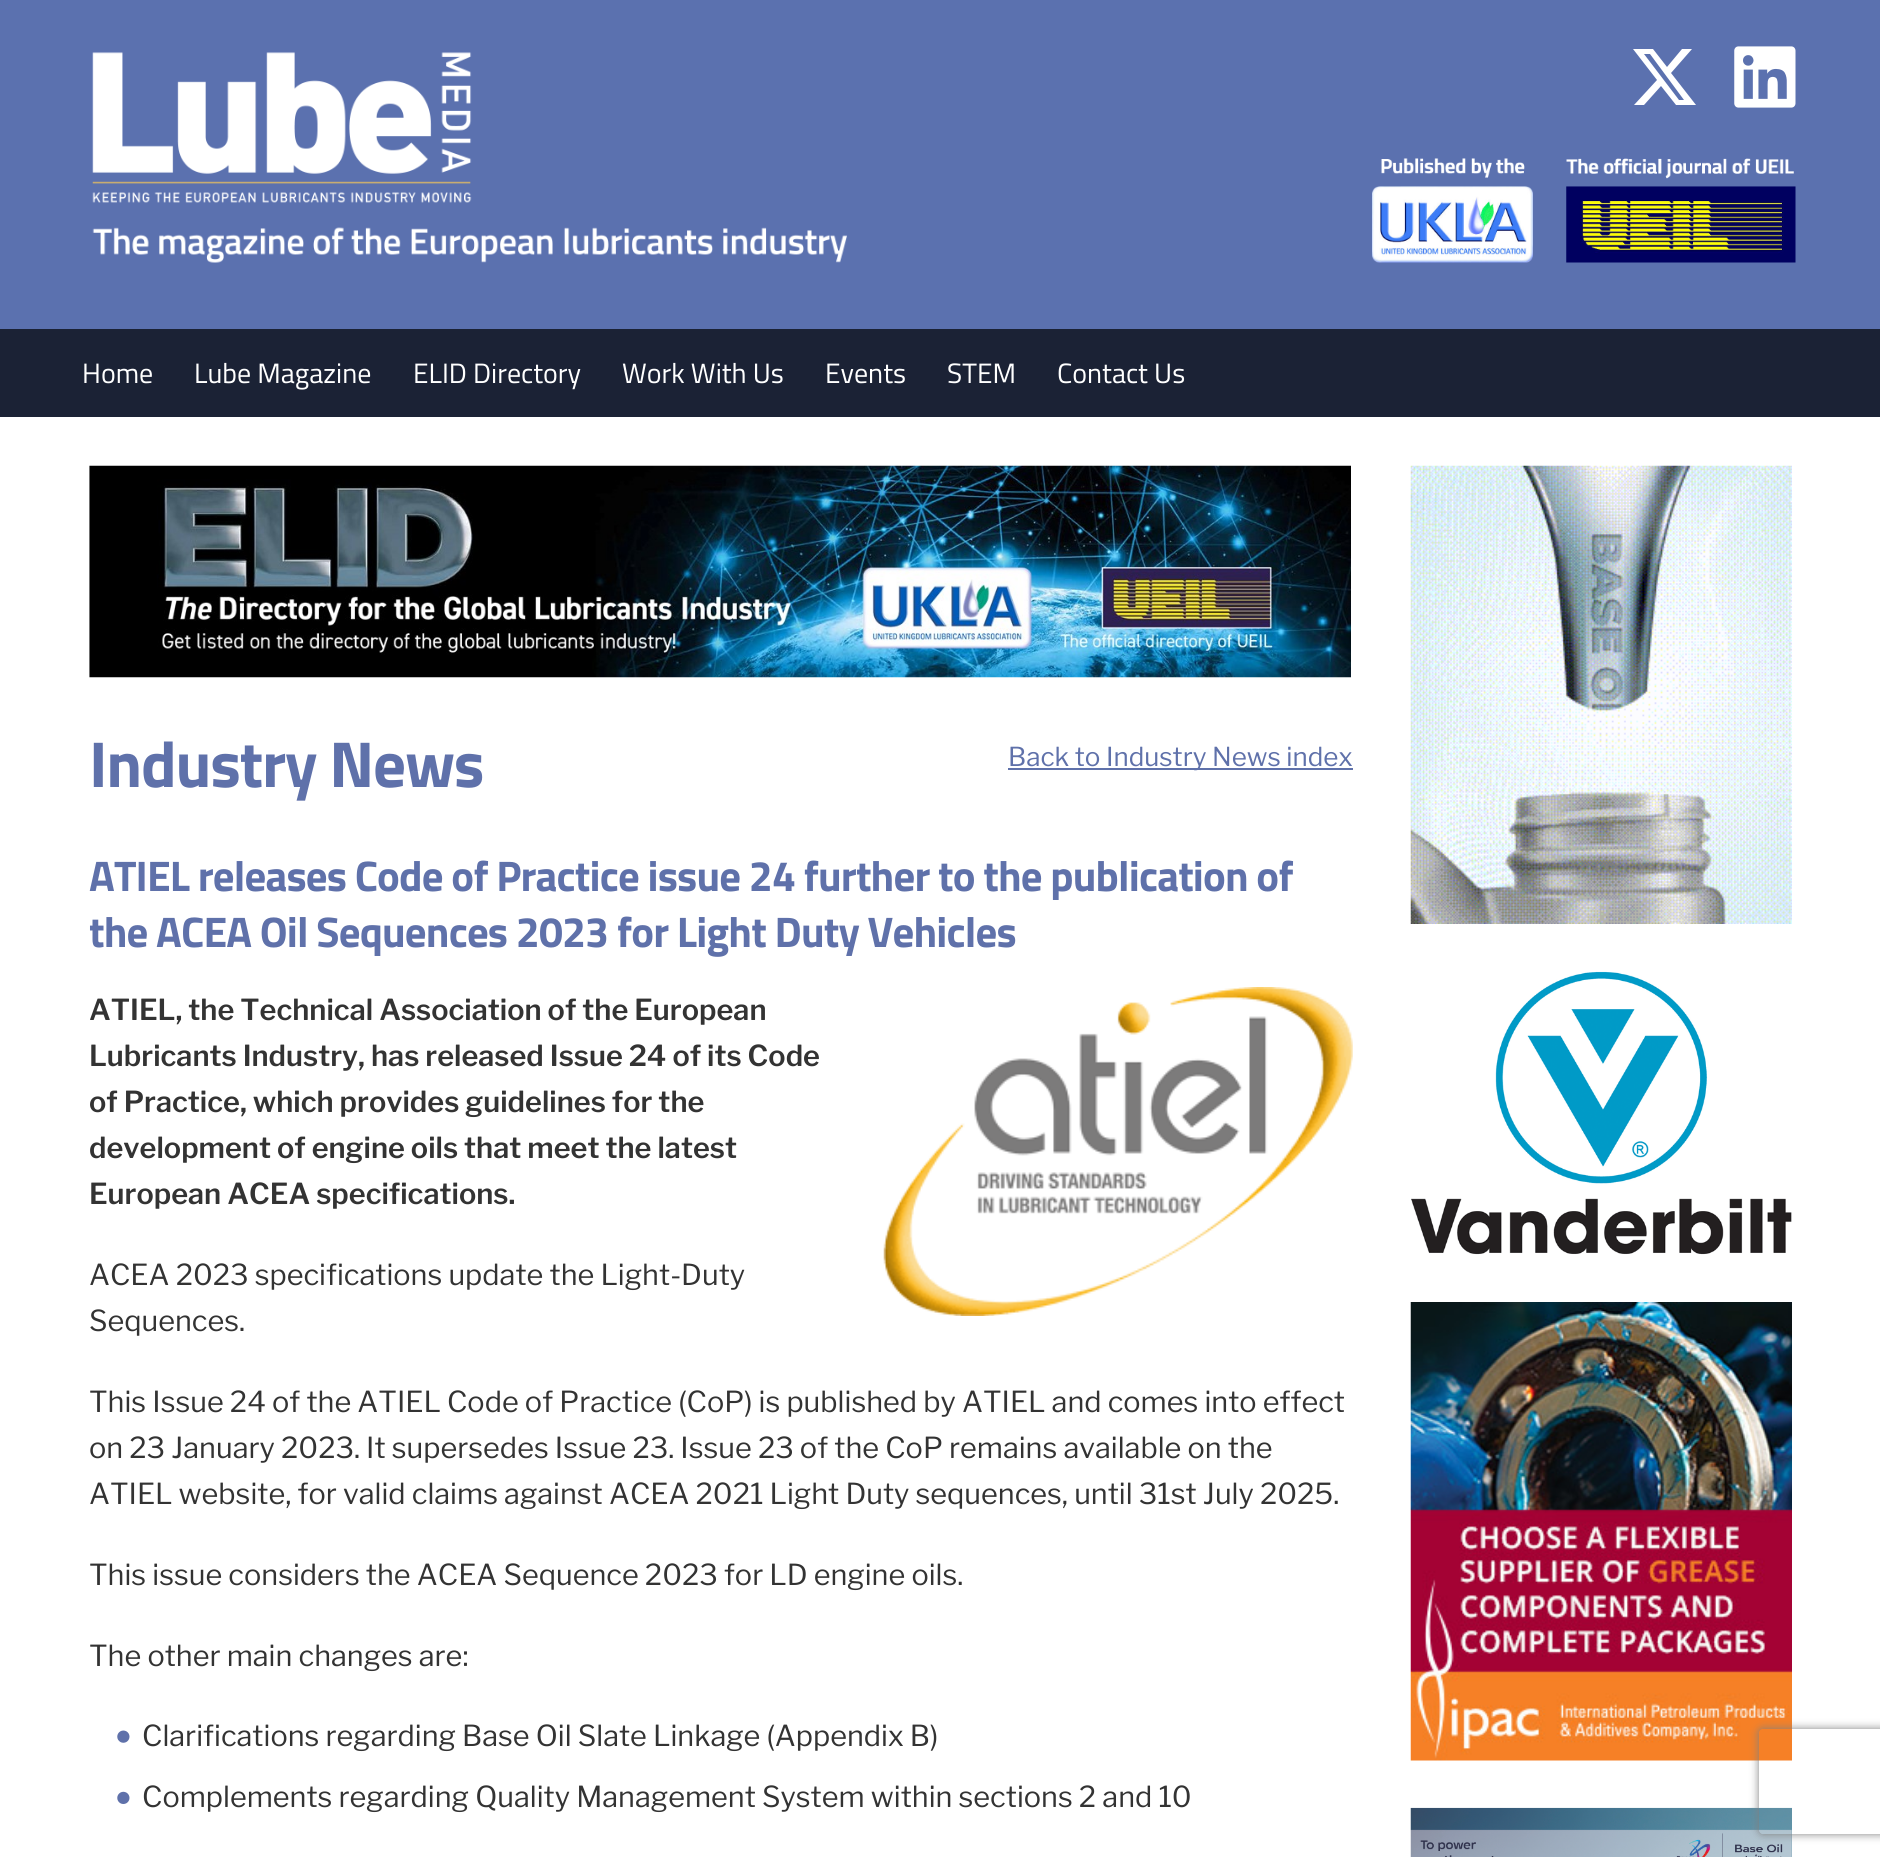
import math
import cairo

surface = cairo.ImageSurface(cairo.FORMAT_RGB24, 1880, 1857)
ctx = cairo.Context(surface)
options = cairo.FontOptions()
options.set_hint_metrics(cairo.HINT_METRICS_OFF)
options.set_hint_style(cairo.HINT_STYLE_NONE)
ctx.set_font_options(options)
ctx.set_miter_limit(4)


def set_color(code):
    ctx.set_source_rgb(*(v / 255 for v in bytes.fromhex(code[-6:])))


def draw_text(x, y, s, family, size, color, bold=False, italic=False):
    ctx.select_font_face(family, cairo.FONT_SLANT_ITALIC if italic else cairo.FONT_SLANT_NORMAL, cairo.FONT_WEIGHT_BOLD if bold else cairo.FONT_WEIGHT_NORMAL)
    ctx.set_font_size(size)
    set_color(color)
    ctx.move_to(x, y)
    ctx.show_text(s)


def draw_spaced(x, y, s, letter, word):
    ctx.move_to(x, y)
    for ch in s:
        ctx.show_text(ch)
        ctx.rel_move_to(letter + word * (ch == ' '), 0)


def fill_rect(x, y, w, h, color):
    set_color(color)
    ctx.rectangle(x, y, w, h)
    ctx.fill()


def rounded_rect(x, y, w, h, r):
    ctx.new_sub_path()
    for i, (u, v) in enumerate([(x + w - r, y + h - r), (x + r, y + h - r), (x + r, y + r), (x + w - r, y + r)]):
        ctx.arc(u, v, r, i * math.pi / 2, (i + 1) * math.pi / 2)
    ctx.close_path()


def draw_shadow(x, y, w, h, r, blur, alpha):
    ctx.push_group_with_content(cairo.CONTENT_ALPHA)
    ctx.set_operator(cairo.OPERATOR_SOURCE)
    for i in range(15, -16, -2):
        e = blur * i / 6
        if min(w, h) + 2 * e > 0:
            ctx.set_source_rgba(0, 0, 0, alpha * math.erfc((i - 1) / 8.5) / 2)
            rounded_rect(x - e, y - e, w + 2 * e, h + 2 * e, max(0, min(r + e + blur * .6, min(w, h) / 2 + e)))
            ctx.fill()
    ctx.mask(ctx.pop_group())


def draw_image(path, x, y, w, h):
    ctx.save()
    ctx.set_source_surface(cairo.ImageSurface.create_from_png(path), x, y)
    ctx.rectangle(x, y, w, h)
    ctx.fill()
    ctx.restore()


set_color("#ffffff")
ctx.paint()
fill_rect(0, 0, 1880, 329, "#5b71af")
draw_image("assets/img1.png", 92, 52, 755, 211)
draw_image("assets/img2.png", 1372, 158, 161, 105)
set_color("#ffffff")
ctx.new_path()
ctx.move_to(1682, 49)
ctx.line_to(1692, 49)
ctx.line_to(1682, 49)
ctx.line_to(1692, 49)
ctx.line_to(1671, 73)
ctx.line_to(1696, 105)
ctx.line_to(1676, 105)
ctx.line_to(1661, 86)
ctx.line_to(1644, 105)
ctx.line_to(1634, 105)
ctx.line_to(1657, 80)
ctx.line_to(1633, 49)
ctx.line_to(1653, 49)
ctx.line_to(1667, 67)
ctx.close_path()
ctx.move_to(1679, 100)
ctx.line_to(1684, 100)
ctx.line_to(1679, 100)
ctx.line_to(1684, 100)
ctx.line_to(1650, 54)
ctx.line_to(1644, 54)
ctx.close_path()
ctx.fill()
draw_image("assets/img3.png", 1734, 46, 62, 62)
draw_image("assets/img4.png", 1566, 158, 230, 105)
fill_rect(0, 329, 1880, 88, "#1b2235")
draw_text(82, 383, "Home", "Titillium Web", 28, "#ffffff")
draw_text(194, 383, "Lube Magazine", "Titillium Web", 28, "#ffffff")
draw_text(413, 383, "ELID Directory", "Titillium Web", 28, "#ffffff")
draw_text(622, 383, "Work With Us", "Titillium Web", 28, "#ffffff")
draw_text(825, 383, "Events", "Titillium Web", 28, "#ffffff")
draw_text(947, 383, "STEM", "Titillium Web", 28, "#ffffff")
draw_text(1057, 383, "Contact Us", "Titillium Web", 28, "#ffffff")
draw_image("assets/img5.png", 89, 465, 1262, 213)
ctx.select_font_face("Titillium Web", cairo.FONT_SLANT_NORMAL, cairo.FONT_WEIGHT_BOLD)
ctx.set_font_size(65)
set_color("#5f71aa")
draw_spaced(89, 787, "Industry News", -1.25, 0)
fill_rect(1008, 768, 345, 2, "#5f71aa")
draw_text(1008, 766, "Back to Industry News index", "Libre Franklin", 26, "#5f71aa")
ctx.select_font_face("Titillium Web", cairo.FONT_SLANT_NORMAL, cairo.FONT_WEIGHT_BOLD)
ctx.set_font_size(42.8)
draw_spaced(89, 891, "ATIEL releases Code of Practice issue 24 further to the publication of", -0.85, 0)
draw_spaced(89, 947, "the ACEA Oil Sequences 2023 for Light Duty Vehicles", -0.85, 0)
draw_text(89, 1020, "ATIEL, the Technical Association of the European", "Libre Franklin SemiBold", 28.85, "#333333")
draw_text(89, 1066, "Lubricants Industry, has released Issue 24 of its Code", "Libre Franklin SemiBold", 28.85, "#333333")
draw_text(89, 1112, "of Practice, which provides guidelines for the", "Libre Franklin SemiBold", 28.85, "#333333")
draw_text(89, 1158, "development of engine oils that meet the latest", "Libre Franklin SemiBold", 28.85, "#333333")
draw_text(89, 1204, "European ACEA specifications.", "Libre Franklin SemiBold", 28.85, "#333333")
draw_image("assets/img6.png", 883, 987, 470, 329)
draw_text(89, 1285, "ACEA 2023 specifications update the Light-Duty", "Libre Franklin", 28.85, "#333333")
draw_text(89, 1331, "Sequences.", "Libre Franklin", 28.85, "#333333")
draw_text(89, 1412, "This Issue 24 of the ATIEL Code of Practice (CoP) is published by ATIEL and comes into effect", "Libre Franklin", 28.85, "#333333")
draw_text(89, 1458, "on 23 January 2023. It supersedes Issue 23. Issue 23 of the CoP remains available on the", "Libre Franklin", 28.85, "#333333")
draw_text(89, 1504, "ATIEL website, for valid claims against ACEA 2021 Light Duty sequences, until 31st July 2025.", "Libre Franklin", 28.85, "#333333")
draw_text(89, 1585, "This issue considers the ACEA Sequence 2023 for LD engine oils.", "Libre Franklin", 28.85, "#333333")
draw_text(89, 1666, "The other main changes are:", "Libre Franklin", 28.85, "#333333")
draw_image("assets/img7.png", 117, 1730, 13, 13)
draw_text(142, 1746, "Clarifications regarding Base Oil Slate Linkage (Appendix B)", "Libre Franklin", 28.85, "#333333")
draw_image("assets/img8.png", 117, 1791, 13, 13)
draw_text(142, 1807, "Complements regarding Quality Management System within sections 2 and 10", "Libre Franklin", 28.85, "#333333")
draw_image("assets/img9.png", 1410, 465, 382, 459)
draw_image("assets/img10.png", 1411, 971, 381, 284)
draw_image("assets/img11.png", 1410, 1302, 382, 459)
draw_image("assets/img12.png", 1410, 1807, 382, 50)
ctx.save()
ctx.set_fill_rule(cairo.FILL_RULE_EVEN_ODD)
ctx.new_path()
ctx.move_to(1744, 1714)
ctx.line_to(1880, 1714)
ctx.line_to(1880, 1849)
ctx.line_to(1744, 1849)
ctx.close_path()
ctx.move_to(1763, 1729)
ctx.line_to(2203, 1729)
ctx.curve_to(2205, 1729, 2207, 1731, 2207, 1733)
ctx.line_to(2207, 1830)
ctx.curve_to(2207, 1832, 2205, 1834, 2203, 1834)
ctx.line_to(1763, 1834)
ctx.curve_to(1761, 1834, 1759, 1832, 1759, 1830)
ctx.line_to(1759, 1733)
ctx.curve_to(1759, 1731, 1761, 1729, 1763, 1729)
ctx.close_path()
ctx.clip()
set_color("#808080")
draw_shadow(1759, 1729, 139, 105, 4, 4.5, 1)
ctx.restore()
surface.write_to_png("output.png")
